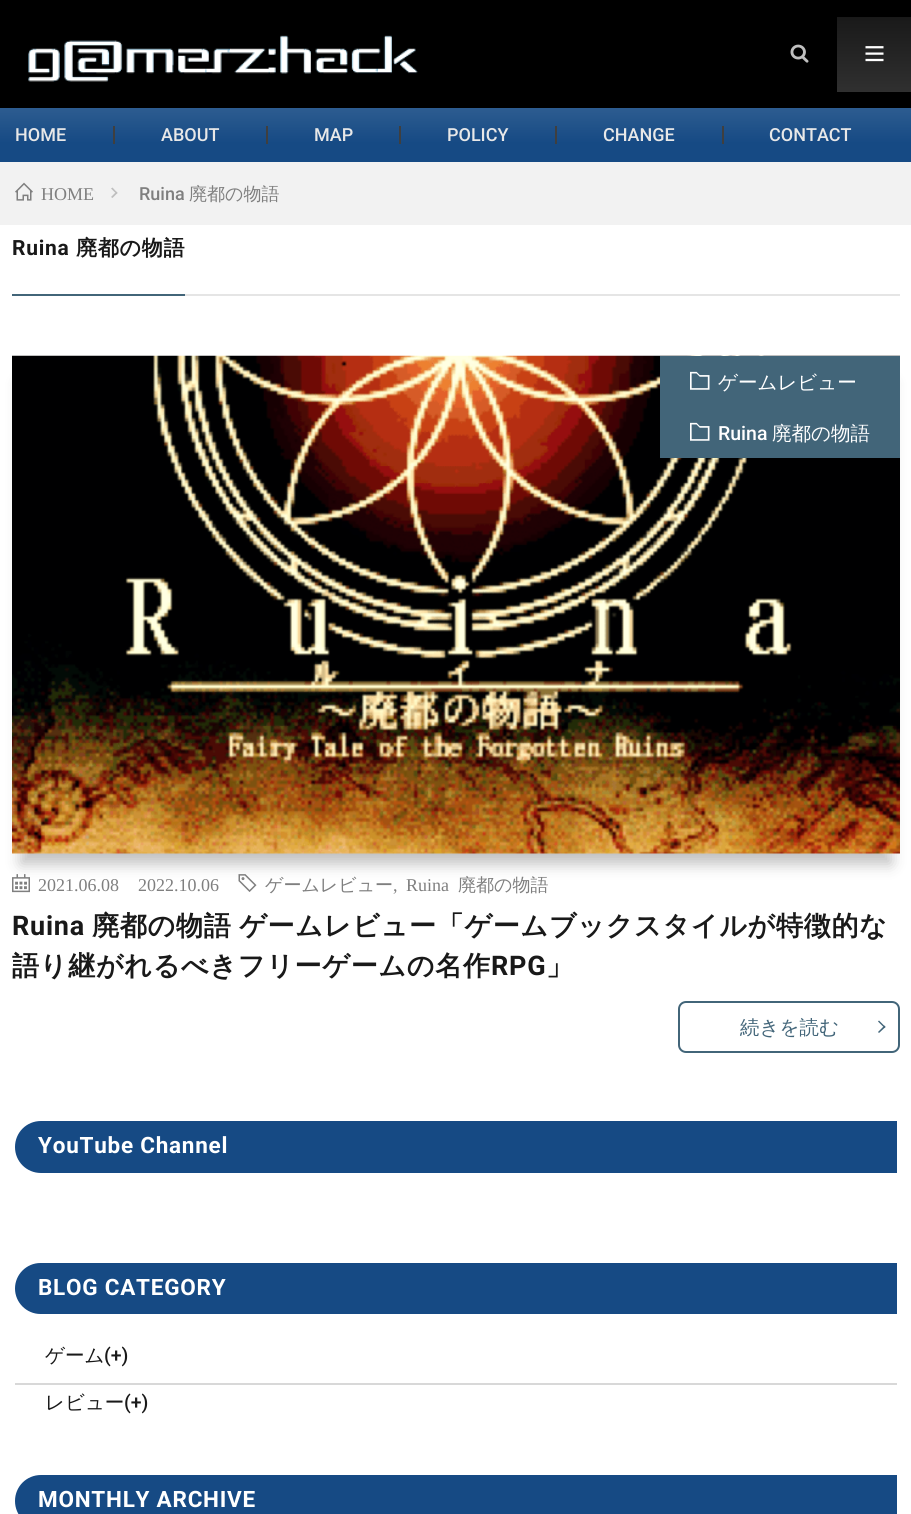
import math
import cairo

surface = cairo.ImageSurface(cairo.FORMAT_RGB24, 911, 1514)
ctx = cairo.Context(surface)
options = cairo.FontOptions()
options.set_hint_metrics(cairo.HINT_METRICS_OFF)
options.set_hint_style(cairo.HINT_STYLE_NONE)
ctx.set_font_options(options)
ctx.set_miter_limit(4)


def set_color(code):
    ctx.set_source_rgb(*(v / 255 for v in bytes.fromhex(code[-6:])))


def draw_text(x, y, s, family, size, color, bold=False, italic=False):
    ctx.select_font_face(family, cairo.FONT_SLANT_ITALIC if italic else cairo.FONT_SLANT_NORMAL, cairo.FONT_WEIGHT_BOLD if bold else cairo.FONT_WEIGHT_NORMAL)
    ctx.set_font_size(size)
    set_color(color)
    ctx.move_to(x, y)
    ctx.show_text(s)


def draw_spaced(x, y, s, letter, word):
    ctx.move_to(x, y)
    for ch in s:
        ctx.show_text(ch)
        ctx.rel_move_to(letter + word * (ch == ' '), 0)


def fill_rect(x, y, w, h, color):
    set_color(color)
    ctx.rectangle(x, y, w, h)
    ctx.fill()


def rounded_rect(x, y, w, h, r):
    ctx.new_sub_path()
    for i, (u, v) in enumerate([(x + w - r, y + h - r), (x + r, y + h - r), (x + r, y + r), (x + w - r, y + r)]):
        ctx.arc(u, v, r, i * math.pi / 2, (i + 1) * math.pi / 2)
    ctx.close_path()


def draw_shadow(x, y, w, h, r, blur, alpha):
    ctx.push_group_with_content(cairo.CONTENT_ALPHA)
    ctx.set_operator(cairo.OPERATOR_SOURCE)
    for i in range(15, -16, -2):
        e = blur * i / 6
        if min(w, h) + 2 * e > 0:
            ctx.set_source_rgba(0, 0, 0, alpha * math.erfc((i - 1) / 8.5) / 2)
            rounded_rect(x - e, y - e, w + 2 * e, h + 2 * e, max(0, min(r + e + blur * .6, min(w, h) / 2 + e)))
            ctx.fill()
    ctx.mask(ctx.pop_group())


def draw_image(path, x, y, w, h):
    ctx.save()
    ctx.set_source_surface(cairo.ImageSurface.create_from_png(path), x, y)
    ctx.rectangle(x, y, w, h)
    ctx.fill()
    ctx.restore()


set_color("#ffffff")
ctx.paint()
fill_rect(0, 0, 911, 108, "#000000")
draw_image("assets/img1.png", 28, 35, 390, 47)
draw_image("assets/img2.png", 790, 44, 19, 19)
gradient = cairo.LinearGradient(875, 16, 875, 92)
gradient.add_color_stop_rgba(0, 0.098, 0.098, 0.098, 1)
gradient.add_color_stop_rgba(1, 0.188, 0.188, 0.188, 1)
ctx.set_source(gradient)
ctx.rectangle(837, 17, 74, 75)
ctx.fill()
draw_image("assets/img3.png", 865, 46, 19, 16)
gradient = cairo.LinearGradient(456, 162, 456, 108)
gradient.add_color_stop_rgba(0, 0.086, 0.29, 0.518, 1)
gradient.add_color_stop_rgba(0.35, 0.086, 0.29, 0.518, 1)
gradient.add_color_stop_rgba(1, 0.176, 0.361, 0.565, 1)
ctx.set_source(gradient)
ctx.rectangle(0, 108, 911, 54)
ctx.fill()
draw_text(15, 141, "HOME", "Roboto Medium", 18, "#e8e8e8")
fill_rect(113, 126, 2, 18, "#3f3f3f")
draw_text(161, 141, "ABOUT", "Roboto Medium", 18, "#e8e8e8")
fill_rect(266, 126, 2, 18, "#3f3f3f")
draw_text(314, 141, "MAP", "Roboto Medium", 18, "#e8e8e8")
fill_rect(399, 126, 2, 18, "#3f3f3f")
draw_text(447, 141, "POLICY", "Roboto Medium", 18, "#e8e8e8")
fill_rect(555, 126, 2, 18, "#3f3f3f")
draw_text(603, 141, "CHANGE", "Roboto Medium", 18, "#e8e8e8")
fill_rect(722, 126, 2, 18, "#3f3f3f")
draw_text(769, 141, "CONTACT", "Roboto Medium", 18, "#e8e8e8")
fill_rect(0, 162, 911, 63, "#f2f2f2")
draw_image("assets/img4.png", 15, 182, 18, 19)
draw_text(41, 200, "HOME", "Liberation Serif", 18, "#7f7f7f")
set_color("#bfbfbf")
ctx.new_path()
ctx.move_to(112.5, 187.5)
ctx.line_to(117.5, 193)
ctx.line_to(116.5, 194)
ctx.line_to(111, 188.5)
ctx.close_path()
ctx.fill()
ctx.new_path()
ctx.move_to(116.5, 191.5)
ctx.line_to(117.5, 193)
ctx.line_to(112.5, 198)
ctx.line_to(111, 197)
ctx.close_path()
ctx.fill()
draw_text(139, 200, "Ruina", "Roboto Medium", 18, "#7f7f7f")
draw_text(189, 200, "廃都の物語", "WenQuanYi Zen Hei Medium", 18, "#7f7f7f")
fill_rect(12, 294, 173, 2, "#426579")
ctx.select_font_face("Roboto", cairo.FONT_SLANT_NORMAL, cairo.FONT_WEIGHT_BOLD)
ctx.set_font_size(21)
set_color("#191919")
draw_spaced(12, 255, "Ruina", 0.75, 0)
ctx.select_font_face("WenQuanYi Zen Hei", cairo.FONT_SLANT_NORMAL, cairo.FONT_WEIGHT_BOLD)
draw_spaced(76, 255, "廃都の物語", 0.75, 0)
fill_rect(185, 294, 715, 2, "#e5e5e5")
draw_image("assets/img7.png", 12, 874, 18, 19)
draw_image("assets/img8.png", 238, 874, 19, 18)
set_color("#000000")
draw_shadow(21, 383, 870, 481, 0, 7.5, 0.25)
draw_image("assets/img5.png", 12, 355, 888, 499)
fill_rect(660, 356, 240, 102, "#426579")
draw_image("assets/img6.png", 690, 371, 20, 19)
draw_text(718, 389, "ゲームレビュー", "WenQuanYi Zen Hei Medium", 19.5, "#ffffff")
draw_image("assets/img6.png", 690, 422, 20, 19)
draw_text(718, 440, "Ruina", "Roboto Medium", 19.5, "#ffffff")
draw_text(772, 440, "廃都の物語", "WenQuanYi Zen Hei Medium", 19.5, "#ffffff")
draw_text(38, 891, "2021.06.08", "Liberation Serif", 18, "#7f7f7f")
draw_text(138, 891, "2022.10.06", "Liberation Serif", 18, "#7f7f7f")
draw_text(265, 891, "ゲームレビュー", "WenQuanYi Zen Hei Medium", 18, "#7f7f7f")
draw_text(393, 891, ",", "Liberation Serif", 18, "#7f7f7f")
draw_text(406, 891, "Ruina", "Liberation Serif", 18, "#7f7f7f")
draw_text(458, 891, "廃都の物語", "WenQuanYi Zen Hei Medium", 18, "#7f7f7f")
ctx.select_font_face("Roboto", cairo.FONT_SLANT_NORMAL, cairo.FONT_WEIGHT_BOLD)
ctx.set_font_size(27)
set_color("#191919")
draw_spaced(12, 935, "Ruina", 0.75, 0)
ctx.select_font_face("WenQuanYi Zen Hei", cairo.FONT_SLANT_NORMAL, cairo.FONT_WEIGHT_BOLD)
draw_spaced(92, 935, "廃都の物語 ゲームレビュー「ゲームブックスタイルが特徴的な", 0.75, -1)
draw_spaced(12, 975, "語り継がれるべきフリーゲームの名作", 0.75, 0)
ctx.select_font_face("Roboto", cairo.FONT_SLANT_NORMAL, cairo.FONT_WEIGHT_BOLD)
draw_spaced(491, 975, "RPG", 0.75, 0)
ctx.select_font_face("WenQuanYi Zen Hei", cairo.FONT_SLANT_NORMAL, cairo.FONT_WEIGHT_BOLD)
draw_spaced(546, 975, "」", 0.75, 0)
rounded_rect(679, 1002, 220, 50, 7)
set_color("#426579")
ctx.stroke()
draw_text(740, 1034, "続きを読む", "WenQuanYi Zen Hei Medium", 19.5, "#426579")
ctx.new_path()
ctx.move_to(879, 1020.5)
ctx.line_to(885.5, 1027)
ctx.line_to(884.5, 1028)
ctx.line_to(878, 1021.5)
ctx.close_path()
ctx.fill()
ctx.new_path()
ctx.move_to(884.5, 1025.5)
ctx.line_to(885.5, 1027)
ctx.line_to(879, 1033)
ctx.line_to(878, 1032)
ctx.close_path()
ctx.fill()
set_color("#164a84")
ctx.new_path()
ctx.move_to(41, 1121)
ctx.line_to(897, 1121)
ctx.line_to(897, 1173)
ctx.line_to(41, 1173)
ctx.curve_to(26.5, 1173, 15, 1161.5, 15, 1147)
ctx.curve_to(15, 1132.5, 26.5, 1121, 41, 1121)
ctx.close_path()
ctx.fill()
ctx.select_font_face("Roboto", cairo.FONT_SLANT_NORMAL, cairo.FONT_WEIGHT_BOLD)
ctx.set_font_size(22.5)
set_color("#ffffff")
draw_spaced(38, 1153, "YouTube Channel", 0.75, 0)
set_color("#164a84")
ctx.new_path()
ctx.move_to(40.5, 1263)
ctx.line_to(897, 1263)
ctx.line_to(897, 1314)
ctx.line_to(40.5, 1314)
ctx.curve_to(26.5, 1314, 15, 1302.5, 15, 1288.5)
ctx.curve_to(15, 1274.5, 26.5, 1263, 40.5, 1263)
ctx.close_path()
ctx.fill()
set_color("#ffffff")
draw_spaced(38, 1295, "BLOG CATEGORY", 0.75, 0)
draw_text(45, 1362, "ゲーム", "WenQuanYi Zen Hei Medium", 19.5, "#191919")
draw_text(104, 1362, "(+)", "Roboto Medium", 19.5, "#191919")
fill_rect(15, 1383, 882, 2, "#d8d8d8")
draw_text(45, 1409, "レビュー", "WenQuanYi Zen Hei Medium", 19.5, "#191919")
draw_text(124, 1409, "(+)", "Roboto Medium", 19.5, "#191919")
set_color("#164a84")
ctx.new_path()
ctx.move_to(41, 1475)
ctx.line_to(897, 1475)
ctx.line_to(897, 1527)
ctx.line_to(41, 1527)
ctx.curve_to(26.5, 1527, 15, 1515.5, 15, 1501)
ctx.curve_to(15, 1486.5, 26.5, 1475, 41, 1475)
ctx.close_path()
ctx.fill()
ctx.select_font_face("Roboto", cairo.FONT_SLANT_NORMAL, cairo.FONT_WEIGHT_BOLD)
ctx.set_font_size(22.5)
set_color("#ffffff")
draw_spaced(38, 1507, "MONTHLY ARCHIVE", 0.75, 0)
surface.write_to_png("output.png")
